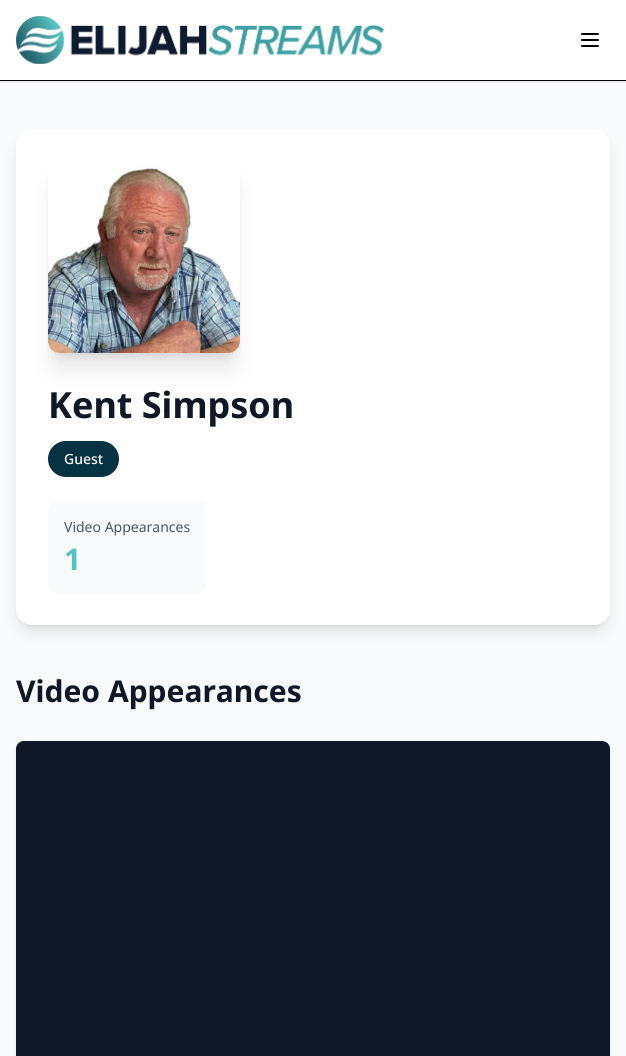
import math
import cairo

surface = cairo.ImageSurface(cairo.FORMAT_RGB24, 626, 1056)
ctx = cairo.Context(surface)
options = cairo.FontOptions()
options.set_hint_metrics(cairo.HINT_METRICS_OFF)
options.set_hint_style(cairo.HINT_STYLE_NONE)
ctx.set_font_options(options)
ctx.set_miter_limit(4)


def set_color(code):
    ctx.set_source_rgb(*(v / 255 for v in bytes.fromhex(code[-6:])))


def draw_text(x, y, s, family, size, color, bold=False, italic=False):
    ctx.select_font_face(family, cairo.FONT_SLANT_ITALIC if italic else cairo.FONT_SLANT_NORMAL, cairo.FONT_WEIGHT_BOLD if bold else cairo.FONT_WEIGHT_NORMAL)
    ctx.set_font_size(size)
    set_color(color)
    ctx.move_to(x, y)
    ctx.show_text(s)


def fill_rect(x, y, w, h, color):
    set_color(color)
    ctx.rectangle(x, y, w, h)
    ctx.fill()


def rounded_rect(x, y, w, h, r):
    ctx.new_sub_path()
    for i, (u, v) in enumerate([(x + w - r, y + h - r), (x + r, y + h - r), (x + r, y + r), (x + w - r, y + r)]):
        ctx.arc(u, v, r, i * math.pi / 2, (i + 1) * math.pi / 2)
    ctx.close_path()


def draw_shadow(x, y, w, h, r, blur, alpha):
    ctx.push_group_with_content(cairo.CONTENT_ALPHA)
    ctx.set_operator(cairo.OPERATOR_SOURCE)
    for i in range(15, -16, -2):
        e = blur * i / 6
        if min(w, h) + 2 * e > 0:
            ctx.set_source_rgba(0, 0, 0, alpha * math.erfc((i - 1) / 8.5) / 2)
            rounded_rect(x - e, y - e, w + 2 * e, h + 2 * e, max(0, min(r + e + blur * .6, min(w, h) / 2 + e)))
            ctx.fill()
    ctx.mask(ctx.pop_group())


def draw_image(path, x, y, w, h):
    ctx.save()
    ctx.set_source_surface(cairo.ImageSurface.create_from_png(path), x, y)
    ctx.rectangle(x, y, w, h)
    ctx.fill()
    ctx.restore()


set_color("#ffffff")
ctx.paint()
fill_rect(0, 81, 626, 975, "#f9fafb")
ctx.save()
ctx.rectangle(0, 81, 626, 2)
ctx.clip()
set_color("#000000")
draw_shadow(0, 1, 626, 81, 0, 1.5, 0.1)
ctx.restore()
fill_rect(0, 80, 626, 1, "#000000")
draw_image("assets/img1.png", 16, 16, 368, 48)
draw_image("assets/img2.png", 581, 33, 18, 14)
set_color("#000000")
draw_shadow(20, 137, 586, 488, 12, 3, 0.1)
draw_shadow(19, 142, 588, 490, 13, 7.5, 0.1)
set_color("#ffffff")
rounded_rect(16, 129, 594, 496, 16)
ctx.fill()
set_color("#000000")
draw_shadow(54, 175, 180, 180, 6, 5, 0.1)
draw_shadow(53, 186, 182, 182, 7, 12.5, 0.1)
draw_image("assets/img3.png", 48, 166, 192, 187)
draw_text(48, 418, "Kent Simpson", "Noto Sans", 36, "#101828", bold=True)
set_color("#063244")
rounded_rect(48, 441, 71, 36, 18)
ctx.fill()
draw_text(64, 464, "Guest", "Noto Sans Medium", 14, "#ffffff")
set_color("#f9fafb")
rounded_rect(48, 501, 158, 92, 8)
ctx.fill()
draw_text(64, 532, "Video Appearances", "Noto Sans", 14, "#4a5565")
draw_text(64, 570, "1", "Noto Sans", 30, "#55c3bf", bold=True)
draw_text(16, 702, "Video Appearances", "Noto Sans", 30, "#101828", bold=True)
set_color("#000000")
draw_shadow(17, 746, 592, 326, 7, 3, 0.1)
set_color("#101828")
ctx.new_path()
ctx.move_to(24, 741)
ctx.line_to(602, 741)
ctx.curve_to(606.5, 741, 610, 744.5, 610, 749)
ctx.line_to(610, 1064)
ctx.line_to(16, 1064)
ctx.line_to(16, 749)
ctx.curve_to(16, 744.5, 19.5, 741, 24, 741)
ctx.close_path()
ctx.fill()
surface.write_to_png("output.png")
